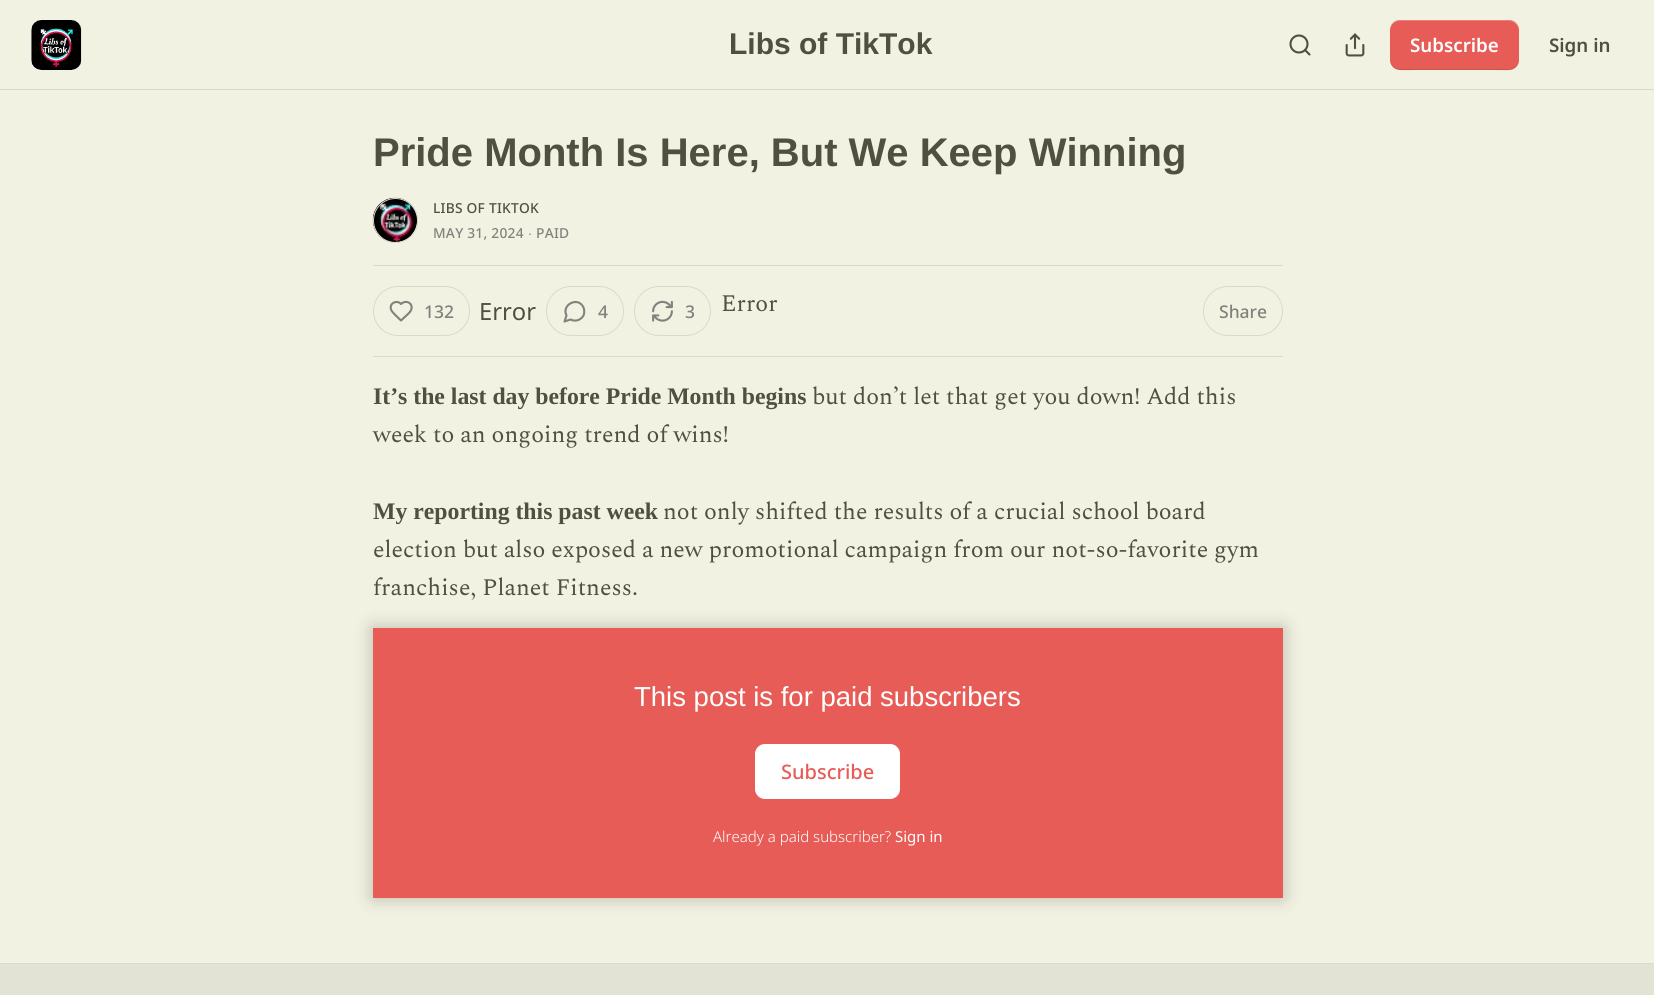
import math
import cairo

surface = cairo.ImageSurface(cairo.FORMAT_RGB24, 1654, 995)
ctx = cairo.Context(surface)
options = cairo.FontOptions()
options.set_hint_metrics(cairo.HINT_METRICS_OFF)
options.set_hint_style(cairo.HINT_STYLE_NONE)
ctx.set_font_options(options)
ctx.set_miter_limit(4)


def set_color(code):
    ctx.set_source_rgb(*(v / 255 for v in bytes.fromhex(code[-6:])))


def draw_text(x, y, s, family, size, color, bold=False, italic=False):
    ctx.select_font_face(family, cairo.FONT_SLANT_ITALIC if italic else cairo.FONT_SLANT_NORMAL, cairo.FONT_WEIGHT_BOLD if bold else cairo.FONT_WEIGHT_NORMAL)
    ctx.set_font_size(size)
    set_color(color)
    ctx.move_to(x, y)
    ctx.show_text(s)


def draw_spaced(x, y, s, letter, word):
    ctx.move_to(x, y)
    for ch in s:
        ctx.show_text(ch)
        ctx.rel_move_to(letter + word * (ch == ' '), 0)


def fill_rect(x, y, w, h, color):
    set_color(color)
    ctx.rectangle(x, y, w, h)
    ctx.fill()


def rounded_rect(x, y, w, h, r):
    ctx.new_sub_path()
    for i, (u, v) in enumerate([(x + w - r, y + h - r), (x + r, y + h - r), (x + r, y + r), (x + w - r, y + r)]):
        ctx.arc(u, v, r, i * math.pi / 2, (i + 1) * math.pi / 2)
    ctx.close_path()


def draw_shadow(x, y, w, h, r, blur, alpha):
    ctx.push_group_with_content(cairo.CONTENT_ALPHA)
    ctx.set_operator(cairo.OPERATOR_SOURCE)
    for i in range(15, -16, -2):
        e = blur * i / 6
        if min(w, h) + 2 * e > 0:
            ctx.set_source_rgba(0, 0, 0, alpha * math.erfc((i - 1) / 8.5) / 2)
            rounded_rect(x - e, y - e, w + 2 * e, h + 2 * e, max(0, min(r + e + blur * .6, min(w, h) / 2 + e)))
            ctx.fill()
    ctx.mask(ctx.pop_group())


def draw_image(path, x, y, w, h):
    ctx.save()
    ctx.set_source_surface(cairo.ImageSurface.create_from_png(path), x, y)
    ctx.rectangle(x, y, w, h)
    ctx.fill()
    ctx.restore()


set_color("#f2f2e3")
ctx.paint()
fill_rect(0, 89, 1654, 1, "#dadacc")
set_color("#ffffff")
rounded_rect(31, 20, 50, 50, 10)
ctx.fill()
draw_image("assets/img1.png", 31, 20, 51, 50)
draw_text(729, 54, "Libs of TikTok", "Liberation Sans", 30, "#505041", bold=True)
ctx.new_path()
ctx.arc(1299, 44, 8.5, 0, 2 * math.pi)
ctx.set_line_width(2.1)
ctx.stroke()
ctx.new_path()
ctx.move_to(1309.5, 54.5)
ctx.line_to(1305, 50)
ctx.set_line_cap(cairo.LINE_CAP_ROUND)
ctx.set_line_join(cairo.LINE_JOIN_ROUND)
ctx.stroke()
draw_image("assets/img2.png", 1345, 33, 20, 24)
set_color("#e85c57")
rounded_rect(1390, 20, 129, 50, 10)
ctx.fill()
ctx.set_source_rgba(0, 0, 0, 0.1)
ctx.new_path()
ctx.move_to(1390, 59)
ctx.curve_to(1390, 74, 1408, 70, 1418, 70)
ctx.line_to(1491, 70)
ctx.curve_to(1501, 70, 1519, 74, 1519, 59)
ctx.curve_to(1519, 64, 1514, 69, 1509, 69)
ctx.line_to(1400, 69)
ctx.curve_to(1394, 69, 1390, 64, 1390, 59)
ctx.close_path()
ctx.fill()
ctx.set_source_rgba(1, 1, 1, 0.2)
ctx.new_path()
ctx.move_to(1400, 21)
ctx.line_to(1509, 21)
ctx.curve_to(1514, 21, 1519, 26, 1519, 31)
ctx.curve_to(1519, 16, 1501, 20, 1491, 20)
ctx.line_to(1418, 20)
ctx.curve_to(1408, 20, 1390, 16, 1390, 31)
ctx.curve_to(1390, 26, 1394, 21, 1400, 21)
ctx.close_path()
ctx.fill()
draw_text(1410, 52, "Subscribe", "Noto Sans SemiBold", 18.75, "#ffffff")
draw_text(1549, 52, "Sign in", "Noto Sans SemiBold", 18.75, "#505041")
draw_text(373, 166, "Pride Month Is Here, But We Keep Winning", "Liberation Sans", 40, "#505041", bold=True)
ctx.new_path()
ctx.arc(395.5, 220.5, 22, 0, 2 * math.pi)
set_color("#dadacc")
ctx.set_line_width(1)
ctx.set_line_cap(cairo.LINE_CAP_BUTT)
ctx.set_line_join(cairo.LINE_JOIN_MITER)
ctx.stroke()
draw_image("assets/img3.png", 372, 197, 46, 46)
ctx.arc(395.5, 220.5, 22, 0, 2 * math.pi)
ctx.stroke()
ctx.select_font_face("Noto Sans Medium")
ctx.set_font_size(13.75)
set_color("#505041")
draw_spaced(433, 213, "LIBS OF TIKTOK", 0.25, 0)
set_color("#81827c")
draw_spaced(433, 238, "MAY 31, 2024", 0.25, 0)
ctx.select_font_face("Liberation Sans")
draw_spaced(528, 238, "∙", 0.25, 0)
ctx.select_font_face("Noto Sans Medium")
draw_spaced(536, 238, "PAID", 0.25, 0)
fill_rect(373, 265, 910, 1, "#dadacc")
fill_rect(373, 356, 910, 1, "#dadacc")
rounded_rect(373.5, 286.5, 96, 49, 24.5)
ctx.stroke()
ctx.new_path()
ctx.move_to(408.5, 313.5)
ctx.curve_to(416.5, 306, 407.5, 298, 401, 304)
ctx.curve_to(397, 299.5, 389, 303, 391, 309.5)
ctx.curve_to(392, 312.5, 398.5, 318, 401, 320.5)
ctx.close_path()
set_color("#81827c")
ctx.set_line_width(2.1)
ctx.set_line_cap(cairo.LINE_CAP_ROUND)
ctx.set_line_join(cairo.LINE_JOIN_ROUND)
ctx.stroke()
draw_text(424, 318, "132", "Noto Sans Medium", 17.5, "#81827c")
draw_text(479, 320, "Error", "Noto Sans", 23.75, "#505041")
rounded_rect(546.5, 286.5, 77, 49, 24.5)
set_color("#dadacc")
ctx.set_line_width(1)
ctx.set_line_cap(cairo.LINE_CAP_BUTT)
ctx.set_line_join(cairo.LINE_JOIN_MITER)
ctx.stroke()
ctx.new_path()
ctx.move_to(570.5, 319.5)
ctx.curve_to(575.5, 322, 581, 320, 583.5, 315.5)
ctx.curve_to(584.5, 313, 584.5, 310, 583.5, 307.5)
ctx.curve_to(578.5, 296, 561, 304.5, 566.5, 315.5)
ctx.line_to(564.5, 321.5)
ctx.close_path()
set_color("#81827c")
ctx.set_line_width(2.1)
ctx.set_line_cap(cairo.LINE_CAP_ROUND)
ctx.set_line_join(cairo.LINE_JOIN_ROUND)
ctx.stroke()
draw_text(598, 318, "4", "Noto Sans Medium", 17.5, "#81827c")
rounded_rect(634.5, 286.5, 76, 49, 24.5)
set_color("#dadacc")
ctx.set_line_width(1)
ctx.set_line_cap(cairo.LINE_CAP_BUTT)
ctx.set_line_join(cairo.LINE_JOIN_MITER)
ctx.stroke()
draw_image("assets/img4.png", 652, 300, 21, 22)
draw_text(685, 318, "3", "Noto Sans Medium", 17.5, "#81827c")
draw_text(721, 311, "Error", "Spectral", 23.75, "#505041")
rounded_rect(1203.5, 286.5, 79, 49, 24.5)
set_color("#dadacc")
ctx.stroke()
draw_text(1219, 318, "Share", "Noto Sans Medium", 17.5, "#81827c")
draw_text(373, 404, "It’s the last day before Pride Month begins", "Liberation Serif", 23.75, "#505041", bold=True)
draw_text(812, 404, "but don’t let that get you down! Add this", "Spectral", 23.75, "#505041")
draw_text(373, 442, "week to an ongoing trend of wins!", "Spectral", 23.75, "#505041")
draw_text(373, 519, "My reporting this past week", "Liberation Serif", 23.75, "#505041", bold=True)
draw_text(663, 519, "not only shifted the results of a crucial school board", "Spectral", 23.75, "#505041")
draw_text(373, 557, "election but also exposed a new promotional campaign from our not-so-favorite gym", "Spectral", 23.75, "#505041")
draw_text(373, 595, "franchise, Planet Fitness.", "Spectral", 23.75, "#505041")
fill_rect(373, 628, 910, 270, "#e85c57")
set_color("#ffffff")
rounded_rect(755.5, 744.5, 144, 54, 9.5)
ctx.fill_preserve()
ctx.stroke()
ctx.save()
ctx.set_fill_rule(cairo.FILL_RULE_EVEN_ODD)
ctx.new_path()
ctx.move_to(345, 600)
ctx.line_to(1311, 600)
ctx.line_to(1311, 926)
ctx.line_to(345, 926)
ctx.close_path()
ctx.move_to(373, 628)
ctx.line_to(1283, 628)
ctx.line_to(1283, 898)
ctx.line_to(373, 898)
ctx.close_path()
ctx.clip()
set_color("#000000")
draw_shadow(373, 628, 910, 270, 0, 9, 0.25)
ctx.restore()
draw_text(634, 706, "This post is for paid subscribers", "Liberation Sans", 27.5, "#ffffff")
draw_text(781, 779, "Subscribe", "Noto Sans Medium", 20, "#e85c57")
draw_text(713, 842, "Already a paid subscriber?", "Noto Sans Light", 15, "#ffffff")
draw_text(895, 842, "Sign in", "Noto Sans", 15, "#ffffff")
fill_rect(0, 964, 1654, 31, "#e3e3d5")
fill_rect(0, 963, 1654, 1, "#dadacc")
surface.write_to_png("output.png")
